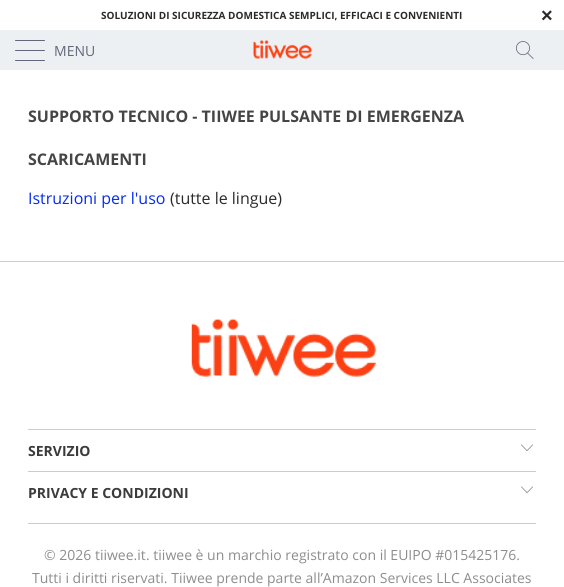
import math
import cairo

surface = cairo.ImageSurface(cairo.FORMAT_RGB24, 564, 587)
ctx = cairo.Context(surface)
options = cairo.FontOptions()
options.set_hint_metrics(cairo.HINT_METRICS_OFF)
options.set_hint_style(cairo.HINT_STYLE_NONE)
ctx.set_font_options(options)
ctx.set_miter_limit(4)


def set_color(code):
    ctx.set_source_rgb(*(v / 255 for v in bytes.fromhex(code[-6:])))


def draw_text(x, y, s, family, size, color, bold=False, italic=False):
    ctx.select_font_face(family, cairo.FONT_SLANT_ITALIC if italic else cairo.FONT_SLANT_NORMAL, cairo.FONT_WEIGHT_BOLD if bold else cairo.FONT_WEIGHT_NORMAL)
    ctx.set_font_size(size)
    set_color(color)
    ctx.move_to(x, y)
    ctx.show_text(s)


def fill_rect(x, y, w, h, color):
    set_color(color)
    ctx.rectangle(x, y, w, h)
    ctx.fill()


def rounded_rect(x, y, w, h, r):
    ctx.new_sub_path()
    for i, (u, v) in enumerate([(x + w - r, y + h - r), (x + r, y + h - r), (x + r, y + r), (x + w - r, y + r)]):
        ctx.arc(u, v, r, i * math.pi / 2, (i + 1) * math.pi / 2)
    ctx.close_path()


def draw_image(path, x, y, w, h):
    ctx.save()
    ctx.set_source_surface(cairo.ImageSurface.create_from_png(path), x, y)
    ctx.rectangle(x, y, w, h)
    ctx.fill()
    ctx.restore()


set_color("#ffffff")
ctx.paint()
draw_text(101, 19, "SOLUZIONI DI SICUREZZA DOMESTICA SEMPLICI, EFFICACI E CONVENIENTI", "Open Sans", 10, "#2b2a2a", bold=True)
draw_text(541, 22, "×", "Liberation Sans", 20, "#2b2a2a", bold=True)
fill_rect(0, 30, 564, 40, "#ecf0f3")
set_color("#62677b")
rounded_rect(15, 40, 30, 1, 0.5)
ctx.fill()
rounded_rect(15, 50, 30, 1, 0.5)
ctx.fill()
rounded_rect(15, 60, 30, 1, 0.5)
ctx.fill()
draw_text(54, 56, "MENU", "Open Sans", 14, "#62677b")
draw_image("assets/img1.png", 253, 40, 59, 19)
draw_image("assets/img2.png", 516, 41, 18, 18)
draw_text(28, 122, "SUPPORTO TECNICO - TIIWEE PULSANTE DI EMERGENZA", "Open Sans", 16, "#454545", bold=True)
draw_text(28, 165, "SCARICAMENTI", "Open Sans", 16, "#454545", bold=True)
draw_text(28, 204, "Istruzioni per l'uso", "Open Sans", 16, "#042dee")
draw_text(170, 204, "(tutte le lingue)", "Open Sans", 16, "#2b2a2a")
fill_rect(0, 261, 564, 1, "#cccccc")
draw_image("assets/img3.png", 191, 318, 186, 59)
fill_rect(28, 429, 508, 1, "#cccccc")
draw_text(28, 456, "SERVIZIO", "Open Sans", 14, "#3b3b3b", bold=True)
draw_image("assets/img4.png", 521, 444, 12, 7)
fill_rect(28, 471, 508, 1, "#cccccc")
draw_text(28, 498, "PRIVACY E CONDIZIONI", "Open Sans", 14, "#3b3b3b", bold=True)
draw_image("assets/img4.png", 521, 486, 12, 7)
fill_rect(28, 523, 508, 1, "#cccccc")
draw_text(44, 560, "© 2026 tiiwee.it", "Open Sans", 14, "#8d8d8d")
draw_text(146, 560, ". tiiwee è un marchio registrato con il EUIPO #015425176.", "Open Sans", 14, "#8d8d8d")
draw_text(32, 583, "Tutti i diritti riservati. Tiiwee prende parte all’Amazon Services LLC Associates", "Open Sans", 14, "#8d8d8d")
surface.write_to_png("output.png")
